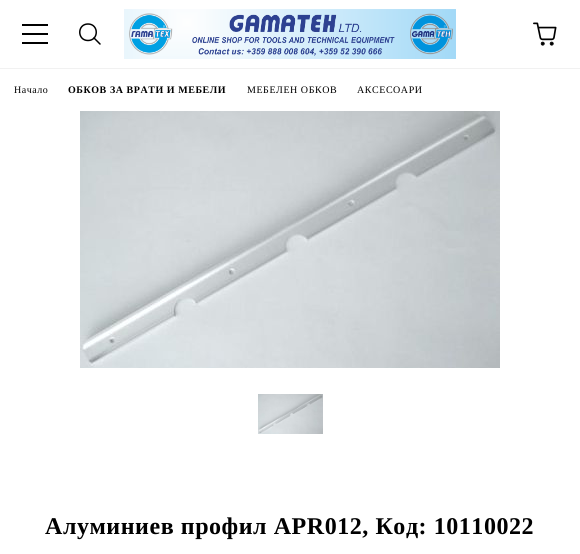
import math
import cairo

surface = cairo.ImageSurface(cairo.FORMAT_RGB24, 580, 554)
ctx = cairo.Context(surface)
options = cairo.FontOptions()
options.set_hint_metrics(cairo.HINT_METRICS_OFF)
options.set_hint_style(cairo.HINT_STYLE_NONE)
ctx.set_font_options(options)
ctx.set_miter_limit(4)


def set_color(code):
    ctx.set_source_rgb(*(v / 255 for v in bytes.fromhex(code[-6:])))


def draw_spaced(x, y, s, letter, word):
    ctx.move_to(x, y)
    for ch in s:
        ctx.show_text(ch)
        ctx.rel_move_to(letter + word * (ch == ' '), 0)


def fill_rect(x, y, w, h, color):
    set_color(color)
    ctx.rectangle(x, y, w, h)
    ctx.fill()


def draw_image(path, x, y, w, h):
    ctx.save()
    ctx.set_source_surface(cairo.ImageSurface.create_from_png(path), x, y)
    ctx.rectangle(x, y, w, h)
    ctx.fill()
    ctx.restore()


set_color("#ffffff")
ctx.paint()
fill_rect(0, 68, 580, 1, "#f1f1f1")
fill_rect(22, 24, 26, 2, "#000000")
fill_rect(22, 33, 26, 2, "#000000")
fill_rect(22, 42, 26, 2, "#000000")
ctx.new_path()
ctx.move_to(88, 24)
ctx.curve_to(77, 24, 77, 40.5, 88, 40.5)
ctx.curve_to(99, 40.5, 99, 24, 88, 24)
ctx.close_path()
ctx.set_line_width(1.5)
ctx.stroke()
ctx.new_path()
ctx.move_to(94, 38)
ctx.line_to(100, 44)
ctx.set_line_cap(cairo.LINE_CAP_ROUND)
ctx.stroke()
draw_image("assets/img1.png", 124, 9, 332, 50)
draw_image("assets/img2.png", 533, 22, 24, 24)
ctx.select_font_face("Liberation Serif")
ctx.set_font_size(10)
draw_spaced(14, 93, "Начало", 0.55, 0)
ctx.select_font_face("Liberation Serif", cairo.FONT_SLANT_NORMAL, cairo.FONT_WEIGHT_BOLD)
draw_spaced(68, 93, "ОБКОВ ЗА ВРАТИ И МЕБЕЛИ", 0.55, 0)
ctx.select_font_face("Liberation Serif")
draw_spaced(247, 93, "МЕБЕЛЕН ОБКОВ", 0.55, 0)
draw_spaced(357, 93, "АКСЕСОАРИ", 0.55, 0)
draw_image("assets/img3.png", 80, 111, 420, 257)
draw_image("assets/img4.png", 258, 394, 65, 40)
ctx.select_font_face("Liberation Serif", cairo.FONT_SLANT_NORMAL, cairo.FONT_WEIGHT_BOLD)
ctx.set_font_size(24)
draw_spaced(45, 534, "Алуминиев профил APR012, Код: 10110022", 0.55, 0)
surface.write_to_png("output.png")
